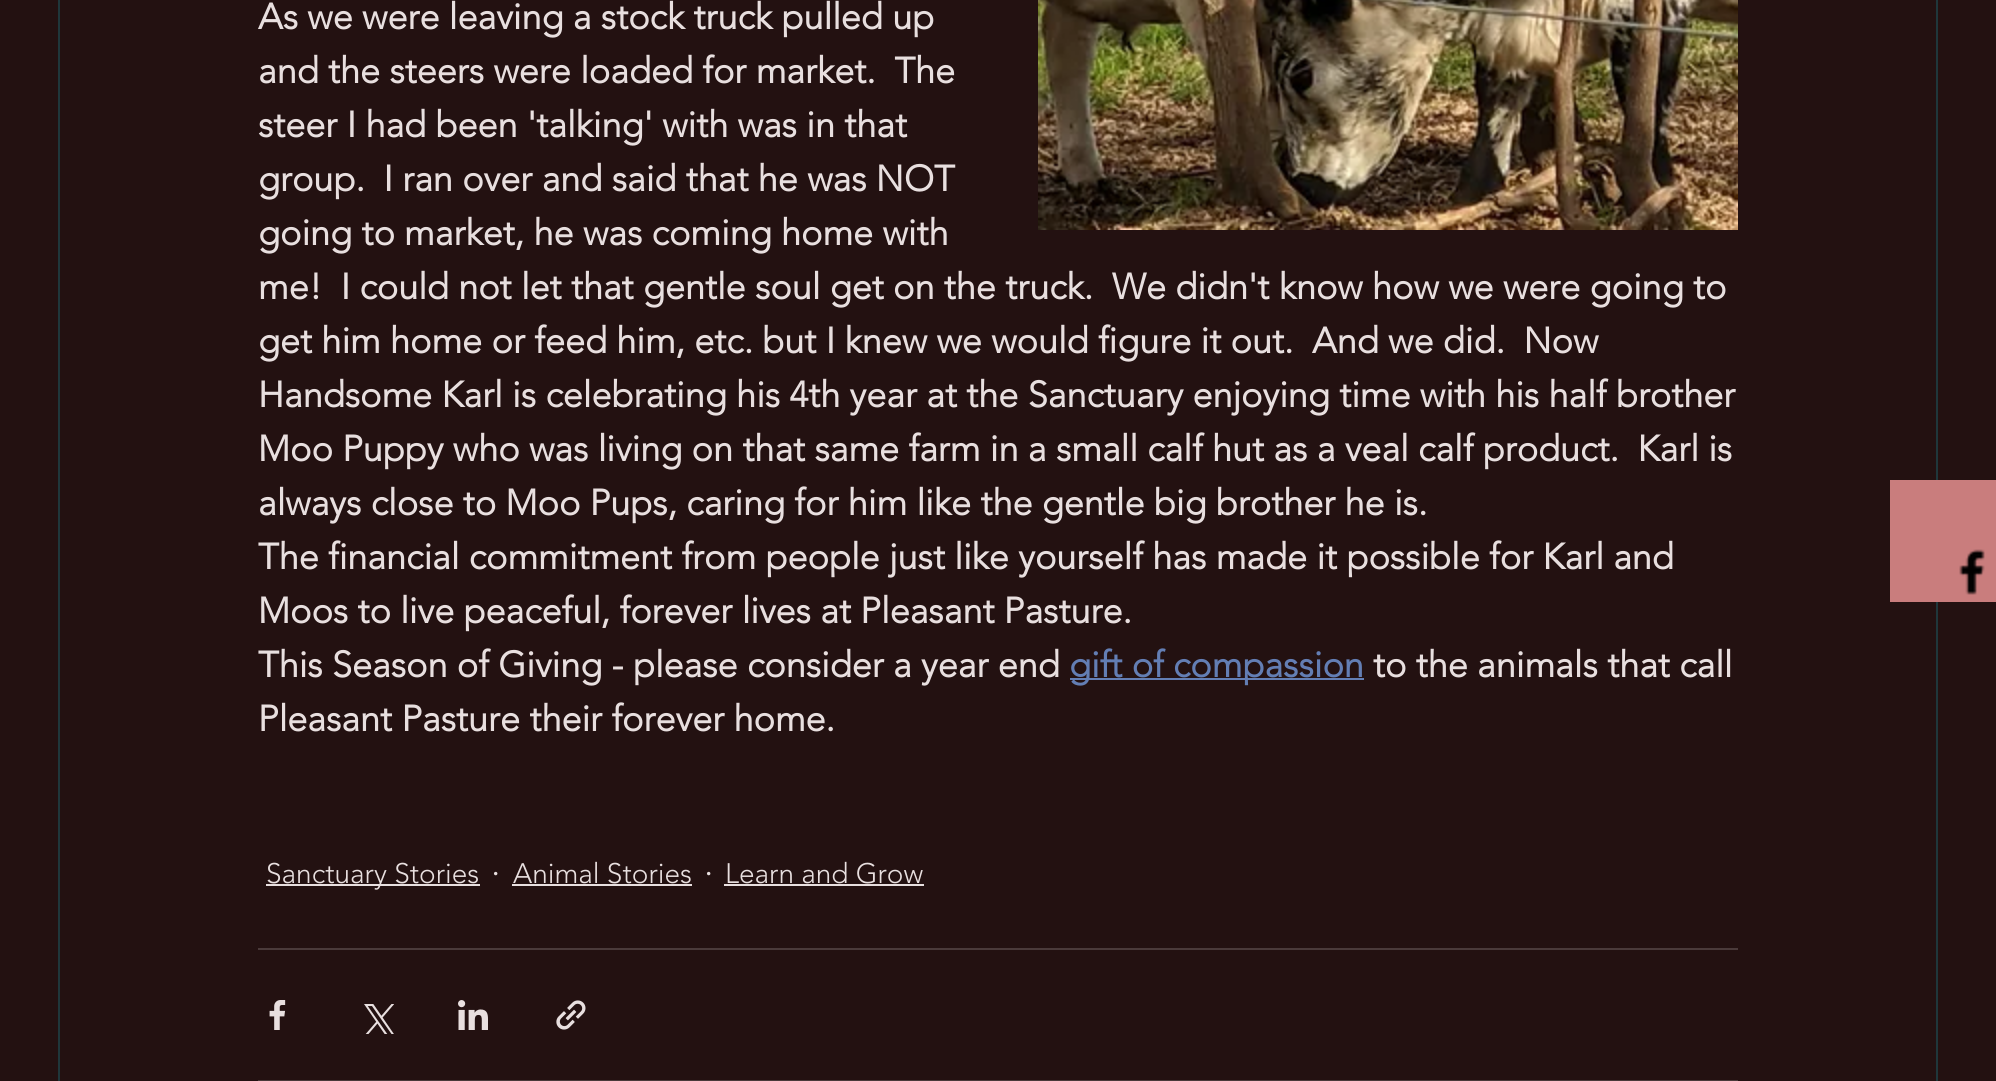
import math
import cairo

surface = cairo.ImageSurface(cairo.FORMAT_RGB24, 1996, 1081)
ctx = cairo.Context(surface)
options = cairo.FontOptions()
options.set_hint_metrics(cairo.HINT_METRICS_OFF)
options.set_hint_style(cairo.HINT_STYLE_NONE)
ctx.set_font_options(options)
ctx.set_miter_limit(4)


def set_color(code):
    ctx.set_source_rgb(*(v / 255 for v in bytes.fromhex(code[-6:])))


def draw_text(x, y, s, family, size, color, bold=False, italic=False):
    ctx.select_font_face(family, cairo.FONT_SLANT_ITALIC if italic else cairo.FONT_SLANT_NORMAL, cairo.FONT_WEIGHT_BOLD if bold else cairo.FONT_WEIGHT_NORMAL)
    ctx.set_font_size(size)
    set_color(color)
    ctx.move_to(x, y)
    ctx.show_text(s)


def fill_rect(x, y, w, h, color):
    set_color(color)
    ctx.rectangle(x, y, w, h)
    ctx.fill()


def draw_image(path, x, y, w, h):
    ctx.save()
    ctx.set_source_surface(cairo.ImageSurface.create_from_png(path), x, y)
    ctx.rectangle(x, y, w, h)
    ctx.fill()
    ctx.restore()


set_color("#231111")
ctx.paint()
ctx.rectangle(59, -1, 1878, 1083)
set_color("#1f373b")
ctx.stroke()
draw_image("assets/img1.png", 1038, 0, 700, 230)
draw_text(258, 29, "As we were leaving a stock truck pulled up", "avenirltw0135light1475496", 36, "#e8dfdf", bold=True)
draw_text(258, 83, "and the steers were loaded for market.  The", "avenirltw0135light1475496", 36, "#e8dfdf", bold=True)
draw_text(258, 137, "steer I had been 'talking' with was in that", "avenirltw0135light1475496", 36, "#e8dfdf", bold=True)
draw_text(258, 191, "group.  I ran over and said that he was NOT", "avenirltw0135light1475496", 36, "#e8dfdf", bold=True)
draw_text(258, 245, "going to market, he was coming home with", "avenirltw0135light1475496", 36, "#e8dfdf", bold=True)
draw_text(258, 299, "me!  I could not let that gentle soul get on the truck.  We didn't know how we were going to", "avenirltw0135light1475496", 36, "#e8dfdf", bold=True)
draw_text(258, 353, "get him home or feed him, etc. but I knew we would figure it out.  And we did.  Now", "avenirltw0135light1475496", 36, "#e8dfdf", bold=True)
draw_text(258, 407, "Handsome Karl is celebrating his 4th year at the Sanctuary enjoying time with his half brother", "avenirltw0135light1475496", 36, "#e8dfdf", bold=True)
draw_text(258, 461, "Moo Puppy who was living on that same farm in a small calf hut as a veal calf product.  Karl is", "avenirltw0135light1475496", 36, "#e8dfdf", bold=True)
draw_text(258, 515, "always close to Moo Pups, caring for him like the gentle big brother he is.", "avenirltw0135light1475496", 36, "#e8dfdf", bold=True)
draw_text(258, 569, "The financial commitment from people just like yourself has made it possible for Karl and", "avenirltw0135light1475496", 36, "#e8dfdf", bold=True)
draw_text(258, 623, "Moos to live peaceful, forever lives at Pleasant Pasture.", "avenirltw0135light1475496", 36, "#e8dfdf", bold=True)
draw_text(258, 677, "This Season of Giving - please consider a year end", "avenirltw0135light1475496", 36, "#e8dfdf", bold=True)
fill_rect(1070, 678, 294, 2, "#637eb4")
draw_text(1069, 677, "gift of compassion", "avenirltw0135light1475496", 36, "#637eb4", bold=True)
draw_text(1373, 677, "to the animals that call", "avenirltw0135light1475496", 36, "#e8dfdf", bold=True)
draw_text(258, 731, "Pleasant Pasture their forever home.", "avenirltw0135light1475496", 36, "#e8dfdf", bold=True)
fill_rect(266, 884, 214, 2, "#e8dfdf")
draw_text(266, 883, "Sanctuary Stories", "avenirltw0135light1475496 Light", 28, "#e8dfdf")
draw_text(491, 885, "·", "avenirltw0135light1475496 Light", 36, "#e8dfdf")
draw_text(513, 883, "Animal Stories", "avenirltw0135light1475496 Light", 28, "#e8dfdf")
fill_rect(512, 884, 180, 2, "#e8dfdf")
draw_text(704, 885, "·", "avenirltw0135light1475496 Light", 36, "#e8dfdf")
draw_text(725, 883, "Learn and Grow", "avenirltw0135light1475496 Light", 28, "#e8dfdf")
fill_rect(724, 884, 200, 2, "#e8dfdf")
fill_rect(258, 948, 1480, 2, "#4a3a3a")
draw_image("assets/img2.png", 269, 1000, 17, 30)
draw_image("assets/img3.png", 364, 1004, 30, 30)
draw_image("assets/img4.png", 458, 1000, 30, 30)
draw_image("assets/img5.png", 556, 1000, 30, 30)
fill_rect(258, 1080, 1480, 1, "#4a3a3a")
fill_rect(1890, 480, 106, 122, "#c97d7d")
draw_image("assets/img6.png", 1959, 549, 26, 46)
surface.write_to_png("output.png")
